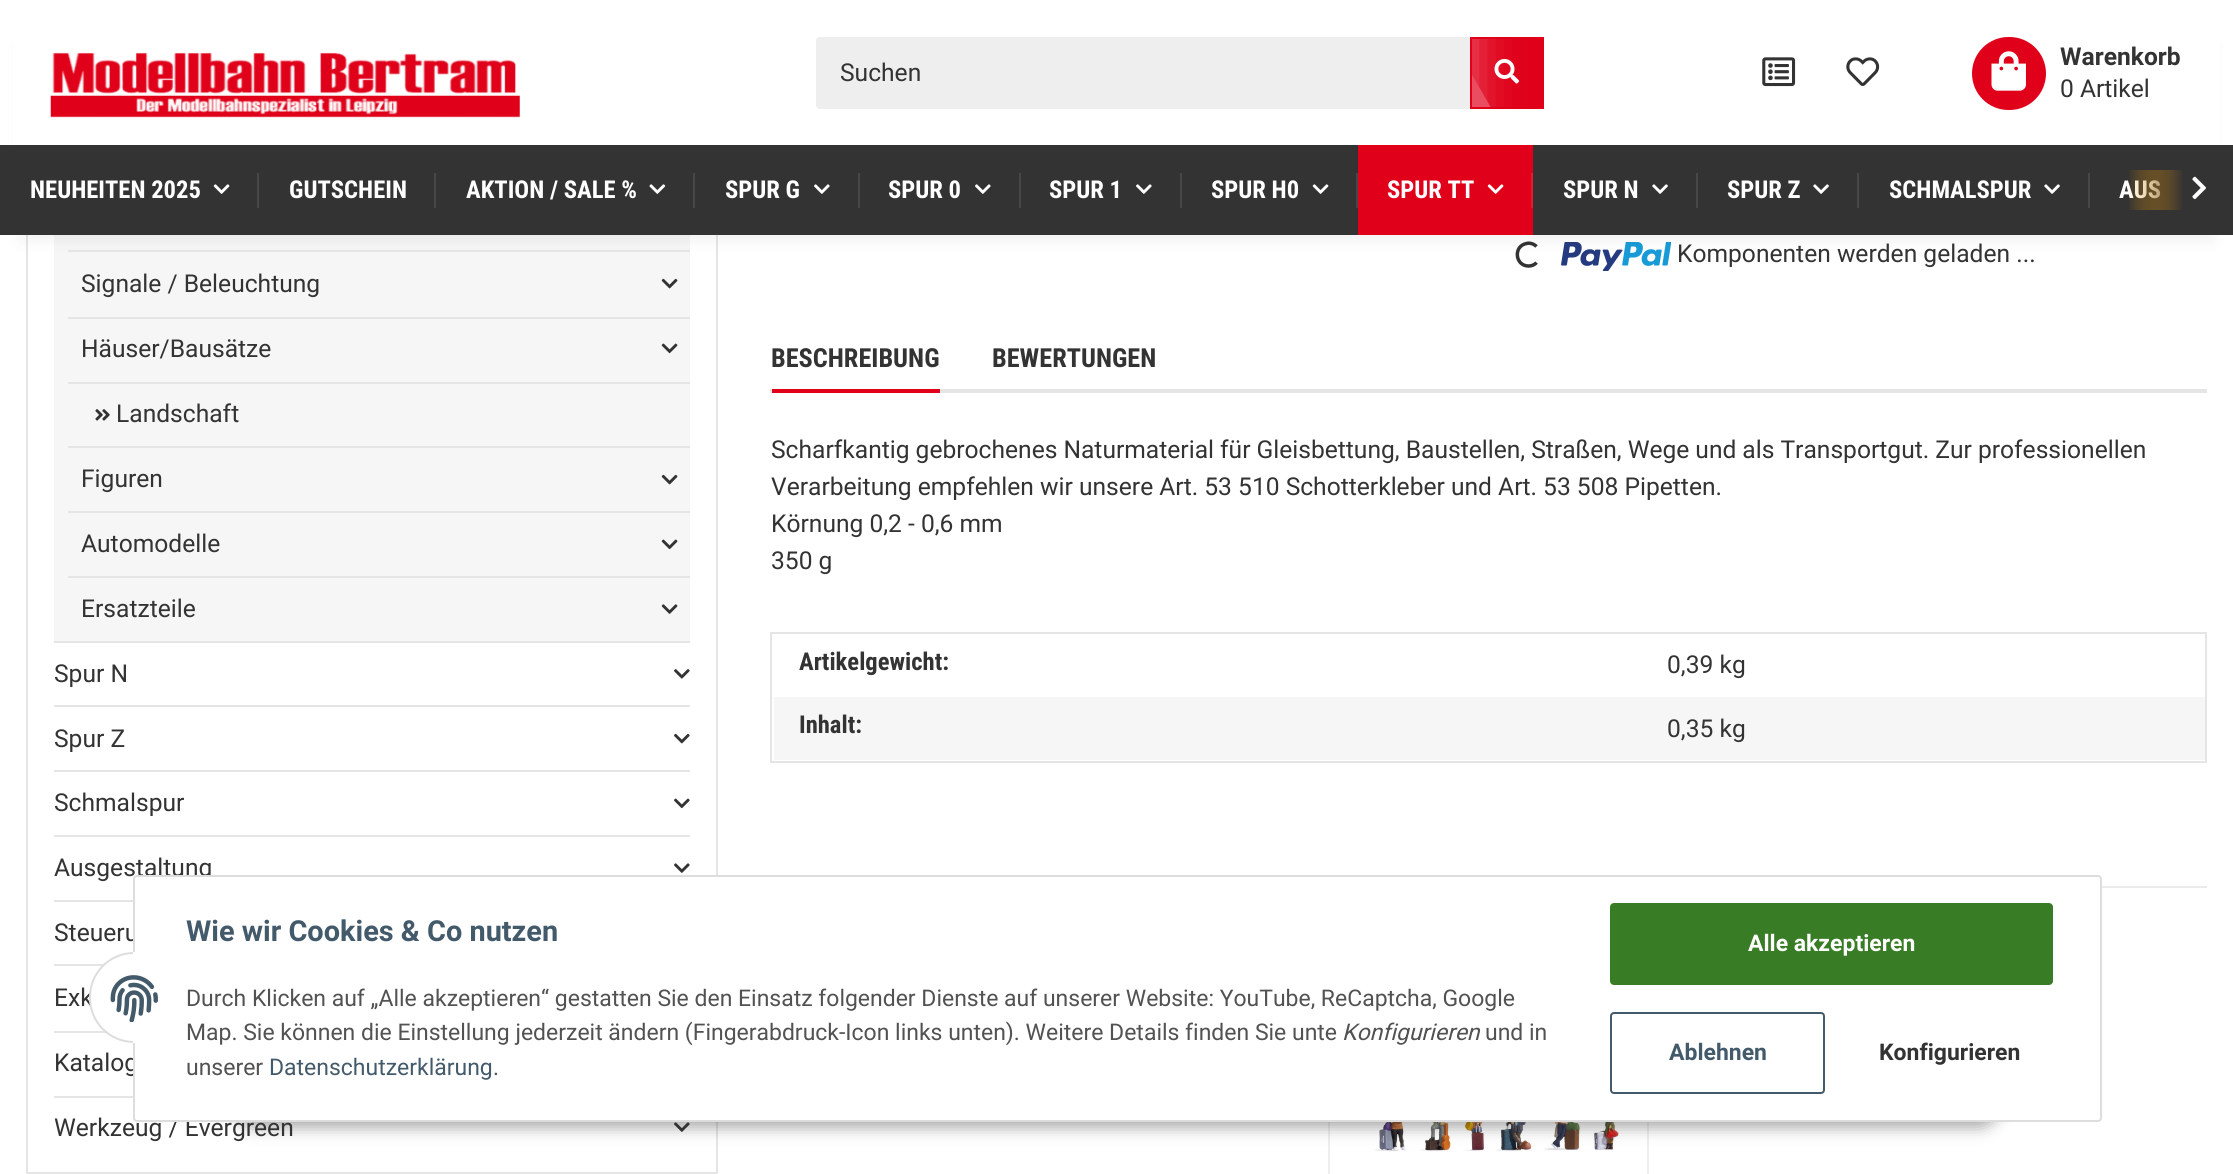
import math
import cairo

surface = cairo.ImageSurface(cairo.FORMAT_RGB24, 2233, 1174)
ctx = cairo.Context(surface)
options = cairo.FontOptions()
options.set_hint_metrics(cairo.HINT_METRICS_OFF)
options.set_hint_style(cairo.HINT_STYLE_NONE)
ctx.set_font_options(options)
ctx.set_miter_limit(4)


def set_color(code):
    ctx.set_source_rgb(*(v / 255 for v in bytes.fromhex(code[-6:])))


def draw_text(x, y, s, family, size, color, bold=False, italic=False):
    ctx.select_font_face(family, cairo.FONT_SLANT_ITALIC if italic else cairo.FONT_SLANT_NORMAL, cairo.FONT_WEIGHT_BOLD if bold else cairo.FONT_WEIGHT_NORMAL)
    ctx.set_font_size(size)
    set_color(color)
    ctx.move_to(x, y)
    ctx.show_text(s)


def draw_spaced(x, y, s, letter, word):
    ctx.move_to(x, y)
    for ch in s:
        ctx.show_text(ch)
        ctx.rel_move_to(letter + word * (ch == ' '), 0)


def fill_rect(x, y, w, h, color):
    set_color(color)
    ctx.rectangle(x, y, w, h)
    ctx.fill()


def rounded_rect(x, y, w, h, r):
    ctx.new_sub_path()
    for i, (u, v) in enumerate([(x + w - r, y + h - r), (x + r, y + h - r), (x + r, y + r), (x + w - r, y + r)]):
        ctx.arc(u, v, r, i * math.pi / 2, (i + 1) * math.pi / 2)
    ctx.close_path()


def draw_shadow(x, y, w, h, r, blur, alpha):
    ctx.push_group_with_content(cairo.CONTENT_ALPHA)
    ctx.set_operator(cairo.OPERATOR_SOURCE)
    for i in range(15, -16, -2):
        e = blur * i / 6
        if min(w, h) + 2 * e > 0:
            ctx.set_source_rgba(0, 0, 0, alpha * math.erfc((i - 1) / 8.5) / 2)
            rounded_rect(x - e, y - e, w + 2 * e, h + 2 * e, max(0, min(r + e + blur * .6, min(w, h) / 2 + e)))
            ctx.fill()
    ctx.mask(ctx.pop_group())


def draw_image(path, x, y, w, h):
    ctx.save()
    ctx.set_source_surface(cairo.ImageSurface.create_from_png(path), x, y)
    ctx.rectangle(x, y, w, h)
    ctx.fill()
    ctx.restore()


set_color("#ffffff")
ctx.paint()
ctx.rectangle(27, -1, 690, 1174)
set_color("#e5e5e5")
ctx.stroke()
fill_rect(54, 235, 636, 406, "#f6f6f6")
fill_rect(68, 250, 622, 2, "#e5e5e5")
ctx.new_path()
ctx.move_to(1536.5, 262.5)
ctx.curve_to(1534.5, 265, 1531.5, 266, 1528.5, 266)
ctx.curve_to(1515, 266, 1513, 246, 1526.5, 243.5)
ctx.curve_to(1530, 242.5, 1534, 244, 1536.5, 246.5)
set_color("#333333")
ctx.set_line_width(3.5)
ctx.stroke()
draw_image("assets/img20.png", 1561, 242, 110, 29)
set_color("#333333")
draw_shadow(19, 46, 2195, 196, 0, 7.5, 0.06)
fill_rect(13, 0, 2207, 145, "#ffffff")
draw_image("assets/img1.png", 50, 52, 470, 66)
set_color("#eeeeee")
rounded_rect(817, 38, 654, 70, 3)
ctx.fill_preserve()
ctx.set_line_width(2)
ctx.stroke()
draw_text(840, 81, "Suchen", "Roboto", 24.6, "#333333")
fill_rect(1470, 37, 74, 72, "#e0001a")
draw_image("assets/img2.png", 1494, 59, 26, 25)
fill_rect(0, 145, 2233, 90, "#333333")
draw_image("assets/img6.png", 1312, 184, 17, 10)
fill_rect(1356, 173, 2, 35, "#474747")
fill_rect(1358, 145, 175, 90, "#e0001a")
draw_image("assets/img9.png", 1487, 184, 17, 10)
fill_rect(1531, 173, 2, 35, "#e31a31")
ctx.save()
ctx.rectangle(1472, 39, 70, 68)
ctx.clip()
set_color("#ffffff")
draw_shadow(1400, -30, 67, 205, 0, 24.5, 0.5)
ctx.restore()
ctx.save()
ctx.rectangle(1472, 39, 70, 68)
ctx.clip()
set_color("#e94d5f")
ctx.new_path()
ctx.move_to(1353, 0)
ctx.line_to(1410, -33)
ctx.line_to(1513, 146)
ctx.line_to(1457, 178)
ctx.close_path()
ctx.fill()
ctx.restore()
draw_image("assets/img3.png", 1762, 57, 34, 30)
draw_image("assets/img4.png", 1846, 57, 34, 29)
set_color("#e0001a")
rounded_rect(1972, 37, 74, 73, 36.5)
ctx.fill()
draw_image("assets/img5.png", 1991, 51, 35, 40)
draw_text(2060, 65, "Warenkorb", "Roboto", 24.6, "#333333", bold=True)
draw_text(2060, 97, "0 Artikel", "Roboto", 24.6, "#333333")
draw_text(30, 198, "NEUHEITEN 2025", "Roboto Condensed", 24.6, "#ffffff", bold=True)
draw_image("assets/img6.png", 213, 184, 17, 10)
fill_rect(257, 173, 2, 35, "#474747")
draw_text(289, 198, "GUTSCHEIN", "Roboto Condensed", 24.6, "#ffffff", bold=True)
fill_rect(434, 173, 2, 35, "#474747")
draw_text(466, 198, "AKTION / SALE %", "Roboto Condensed", 24.6, "#ffffff", bold=True)
draw_image("assets/img7.png", 649, 184, 17, 10)
fill_rect(693, 173, 2, 35, "#474747")
draw_text(725, 198, "SPUR G", "Roboto Condensed", 24.6, "#ffffff", bold=True)
draw_image("assets/img8.png", 814, 184, 16, 10)
fill_rect(858, 173, 2, 35, "#474747")
draw_text(888, 198, "SPUR 0", "Roboto Condensed", 24.6, "#ffffff", bold=True)
draw_image("assets/img8.png", 975, 184, 16, 10)
fill_rect(1019, 173, 2, 35, "#474747")
draw_text(1049, 198, "SPUR 1", "Roboto Condensed", 24.6, "#ffffff", bold=True)
draw_image("assets/img8.png", 1136, 184, 16, 10)
fill_rect(1180, 173, 2, 35, "#474747")
draw_text(1211, 198, "SPUR H0", "Roboto Condensed", 24.6, "#ffffff", bold=True)
draw_text(1387, 198, "SPUR TT", "Roboto Condensed", 24.6, "#ffffff", bold=True)
draw_text(1563, 198, "SPUR N", "Roboto Condensed", 24.6, "#ffffff", bold=True)
draw_image("assets/img10.png", 1652, 184, 16, 10)
fill_rect(1696, 173, 2, 35, "#474747")
draw_text(1727, 198, "SPUR Z", "Roboto Condensed", 24.6, "#ffffff", bold=True)
draw_image("assets/img10.png", 1813, 184, 16, 10)
fill_rect(1857, 173, 2, 35, "#474747")
draw_text(1889, 198, "SCHMALSPUR", "Roboto Condensed", 24.6, "#ffffff", bold=True)
draw_image("assets/img10.png", 2044, 184, 16, 10)
fill_rect(2088, 173, 2, 35, "#474747")
draw_text(2119, 198, "AUS", "Roboto Condensed", 24.6, "#ffffff", bold=True)
gradient = cairo.LinearGradient(2128, 190, 2207, 190)
gradient.add_color_stop_rgba(0, 1, 0.639, 0, 0.01)
gradient.add_color_stop_rgba(0.7, 0.2, 0.2, 0.2, 1)
ctx.set_source(gradient)
ctx.rectangle(2129, 170, 54, 40)
ctx.fill()
draw_image("assets/img11.png", 2192, 176, 14, 24)
draw_text(81, 292, "Signale / Beleuchtung", "Roboto", 24.6, "#333333")
draw_image("assets/img12.png", 661, 278, 17, 11)
fill_rect(68, 317, 622, 2, "#e5e5e5")
draw_text(81, 357, "Häuser/Bausätze", "Roboto", 24.6, "#333333")
draw_image("assets/img13.png", 661, 343, 17, 11)
fill_rect(68, 382, 622, 2, "#e5e5e5")
draw_image("assets/img14.png", 95, 409, 15, 12)
draw_text(116, 422, "Landschaft", "Roboto", 24.6, "#333333")
fill_rect(68, 446, 622, 2, "#e5e5e5")
draw_text(81, 487, "Figuren", "Roboto", 24.6, "#333333")
draw_image("assets/img12.png", 661, 474, 17, 11)
fill_rect(68, 511, 622, 2, "#e5e5e5")
draw_text(81, 552, "Automodelle", "Roboto", 24.6, "#333333")
draw_image("assets/img13.png", 661, 539, 17, 11)
fill_rect(68, 576, 622, 2, "#e5e5e5")
draw_text(81, 617, "Ersatzteile", "Roboto", 24.6, "#333333")
draw_image("assets/img15.png", 661, 604, 17, 10)
fill_rect(54, 641, 636, 2, "#e5e5e5")
draw_text(54, 682, "Spur N", "Roboto", 24.6, "#333333")
draw_image("assets/img16.png", 674, 669, 16, 10)
fill_rect(54, 705, 636, 2, "#e5e5e5")
draw_text(54, 747, "Spur Z", "Roboto", 24.6, "#333333")
draw_image("assets/img17.png", 674, 733, 16, 11)
fill_rect(54, 770, 636, 2, "#e5e5e5")
draw_text(54, 811, "Schmalspur", "Roboto", 24.6, "#333333")
draw_image("assets/img18.png", 674, 798, 16, 11)
fill_rect(54, 835, 636, 2, "#e5e5e5")
draw_text(54, 876, "Ausgestaltung", "Roboto", 24.6, "#333333")
draw_image("assets/img19.png", 674, 863, 16, 10)
fill_rect(54, 900, 79, 2, "#e5e5e5")
draw_text(54, 941, "Steueru", "Roboto", 24.6, "#333333")
fill_rect(54, 964, 50, 2, "#e5e5e5")
draw_text(54, 1006, "Exk", "Roboto", 24.6, "#333333")
fill_rect(54, 1031, 52, 2, "#e5e5e5")
draw_text(54, 1071, "Katalog", "Roboto", 24.6, "#333333")
fill_rect(54, 1096, 79, 2, "#e5e5e5")
draw_text(54, 1136, "Werkzeug / Evergreen", "Roboto", 24.6, "#333333")
draw_image("assets/img19.png", 674, 1122, 16, 10)
draw_text(1677, 262, "Komponenten werden geladen ...", "Roboto", 24.6, "#333333")
fill_rect(770, 389, 1437, 4, "#e5e5e5")
draw_text(771, 367, "BESCHREIBUNG", "Roboto Condensed", 26.25, "#333333", bold=True)
fill_rect(772, 389, 168, 4, "#e0001a")
draw_text(992, 367, "BEWERTUNGEN", "Roboto Condensed", 26.25, "#333333", bold=True)
ctx.select_font_face("Roboto")
ctx.set_font_size(24.6)
draw_spaced(771, 458, "Scharfkantig gebrochenes Naturmaterial für Gleisbettung, Baustellen, Straßen, Wege und als Transportgut. Zur professionellen", 0, -0.1)
draw_text(771, 495, "Verarbeitung empfehlen wir unsere Art. 53 510 Schotterkleber und Art. 53 508 Pipetten.", "Roboto", 24.6, "#333333")
draw_text(771, 532, "Körnung 0,2 - 0,6 mm", "Roboto", 24.6, "#333333")
draw_text(771, 569, "350 g", "Roboto", 24.6, "#333333")
fill_rect(770, 632, 1437, 2, "#e5e5e5")
fill_rect(2205, 697, 2, 66, "#e5e5e5")
fill_rect(2205, 632, 2, 66, "#e5e5e5")
fill_rect(770, 761, 1437, 2, "#e5e5e5")
fill_rect(770, 697, 2, 66, "#e5e5e5")
fill_rect(770, 632, 2, 66, "#e5e5e5")
draw_text(799, 670, "Artikelgewicht:", "Roboto Condensed", 24.6, "#333333", bold=True)
draw_text(1667, 673, "0,39 kg", "Roboto", 24.6, "#333333")
fill_rect(774, 697, 1431, 63, "#f6f6f6")
draw_text(799, 733, "Inhalt:", "Roboto Condensed", 24.6, "#333333", bold=True)
draw_text(1667, 737, "0,35 kg", "Roboto", 24.6, "#333333")
fill_rect(2102, 886, 105, 2, "#ebebeb")
ctx.rectangle(1329, 960, 319, 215)
set_color("#eeeeee")
ctx.stroke()
draw_image("assets/img21.png", 1375, 1122, 244, 30)
set_color("#333333")
draw_shadow(233, 1075, 1767, 52, 26, 8, 0.45)
set_color("#ffffff")
rounded_rect(134, 876, 1967, 245, 3)
ctx.fill_preserve()
set_color("#dddddd")
ctx.stroke()
set_color("#ffffff")
rounded_rect(90, 953, 88, 89, 44)
ctx.fill_preserve()
set_color("#dddddd")
ctx.stroke()
fill_rect(133, 952, 46, 91, "#ffffff")
draw_image("assets/img22.png", 110, 975, 48, 47)
draw_text(186, 941, "Wie wir Cookies & Co nutzen", "Roboto", 28.9, "#435a6b", bold=True)
draw_text(186, 1006, "Durch Klicken auf „Alle akzeptieren“ gestatten Sie den Einsatz folgender Dienste auf unserer Website: YouTube, ReCaptcha, Google", "Roboto", 22.97, "#525252")
draw_text(186, 1040, "Map. Sie können die Einstellung jederzeit ändern (Fingerabdruck-Icon links unten). Weitere Details finden Sie unte", "Roboto", 22.97, "#525252")
draw_text(1342, 1040, "Konfigurieren", "Roboto", 22.97, "#525252", italic=True)
draw_text(1485, 1040, "und in", "Roboto", 22.97, "#525252")
draw_text(186, 1075, "unserer", "Roboto", 22.97, "#525252")
draw_text(269, 1075, "Datenschutzerklärung", "Roboto", 22.97, "#435a6b")
draw_text(493, 1075, ".", "Roboto", 22.97, "#525252")
set_color("#397c26")
rounded_rect(1611, 904, 441, 80, 3)
ctx.fill_preserve()
ctx.stroke()
draw_text(1748, 951, "Alle akzeptieren", "Roboto", 22.97, "#ffffff", bold=True)
rounded_rect(1611, 1013, 213, 80, 3)
set_color("#435a6b")
ctx.stroke()
draw_text(1669, 1060, "Ablehnen", "Roboto", 22.97, "#435a6b", bold=True)
draw_text(1879, 1060, "Konfigurieren", "Roboto", 22.97, "#333333", bold=True)
surface.write_to_png("output.png")
